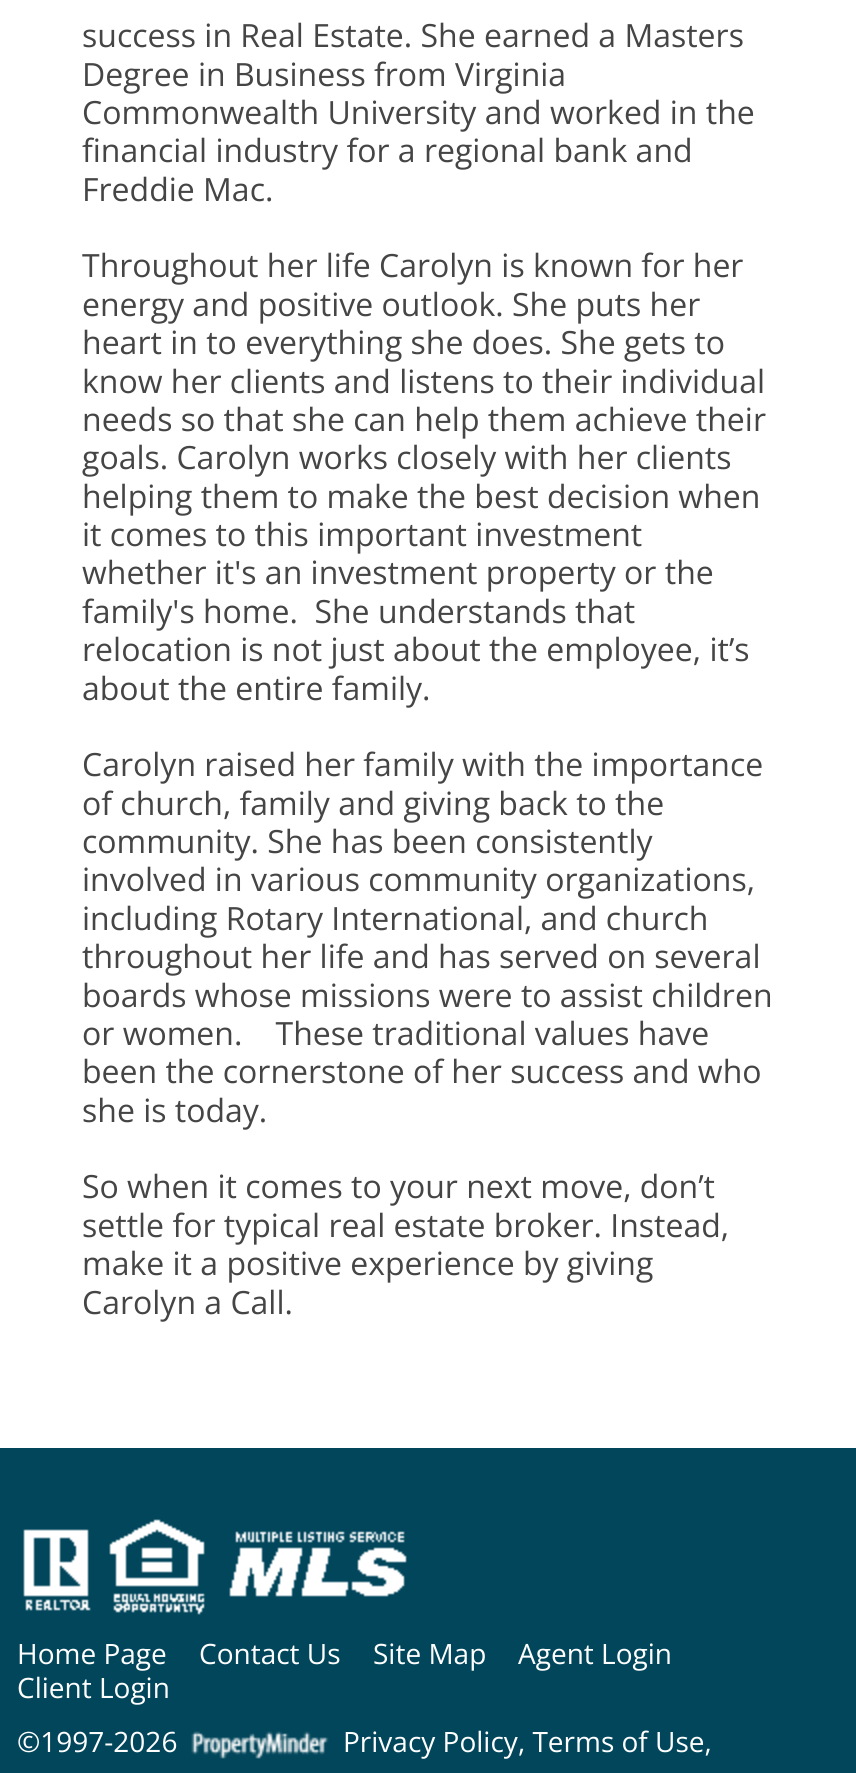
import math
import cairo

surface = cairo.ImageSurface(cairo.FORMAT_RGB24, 856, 1773)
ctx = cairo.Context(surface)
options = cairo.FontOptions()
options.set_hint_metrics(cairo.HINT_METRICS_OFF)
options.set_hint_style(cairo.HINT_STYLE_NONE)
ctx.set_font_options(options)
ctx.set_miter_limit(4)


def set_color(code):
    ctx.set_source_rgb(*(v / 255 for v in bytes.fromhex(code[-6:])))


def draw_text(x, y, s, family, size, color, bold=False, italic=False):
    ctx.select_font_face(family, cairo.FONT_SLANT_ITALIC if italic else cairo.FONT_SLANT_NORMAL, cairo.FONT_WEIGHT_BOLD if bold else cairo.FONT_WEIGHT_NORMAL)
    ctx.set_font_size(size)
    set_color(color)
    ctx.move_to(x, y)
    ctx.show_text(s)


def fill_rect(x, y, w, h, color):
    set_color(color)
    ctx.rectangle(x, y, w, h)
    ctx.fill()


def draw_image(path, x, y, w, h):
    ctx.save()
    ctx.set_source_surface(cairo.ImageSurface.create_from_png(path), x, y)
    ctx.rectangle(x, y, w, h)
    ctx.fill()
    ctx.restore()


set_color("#ffffff")
ctx.paint()
draw_text(82, 47, "success in Real Estate. She earned a Masters", "Open Sans", 32, "#454545")
draw_text(82, 86, "Degree in Business from Virginia", "Open Sans", 32, "#454545")
draw_text(82, 124, "Commonwealth University and worked in the", "Open Sans", 32, "#454545")
draw_text(82, 162, "financial industry for a regional bank and", "Open Sans", 32, "#454545")
draw_text(82, 201, "Freddie Mac.", "Open Sans", 32, "#454545")
draw_text(82, 277, "Throughout her life Carolyn is known for her", "Open Sans", 32, "#454545")
draw_text(82, 316, "energy and positive outlook. She puts her", "Open Sans", 32, "#454545")
draw_text(82, 354, "heart in to everything she does. She gets to", "Open Sans", 32, "#454545")
draw_text(82, 393, "know her clients and listens to their individual", "Open Sans", 32, "#454545")
draw_text(82, 431, "needs so that she can help them achieve their", "Open Sans", 32, "#454545")
draw_text(82, 469, "goals. Carolyn works closely with her clients", "Open Sans", 32, "#454545")
draw_text(82, 508, "helping them to make the best decision when", "Open Sans", 32, "#454545")
draw_text(82, 546, "it comes to this important investment", "Open Sans", 32, "#454545")
draw_text(82, 584, "whether it's an investment property or the", "Open Sans", 32, "#454545")
draw_text(82, 623, "family's home.  She understands that", "Open Sans", 32, "#454545")
draw_text(82, 661, "relocation is not just about the employee, it’s", "Open Sans", 32, "#454545")
draw_text(82, 700, "about the entire family.", "Open Sans", 32, "#454545")
draw_text(82, 776, "Carolyn raised her family with the importance", "Open Sans", 32, "#454545")
draw_text(82, 815, "of church, family and giving back to the", "Open Sans", 32, "#454545")
draw_text(82, 853, "community. She has been consistently", "Open Sans", 32, "#454545")
draw_text(82, 891, "involved in various community organizations,", "Open Sans", 32, "#454545")
draw_text(82, 930, "including Rotary International, and church", "Open Sans", 32, "#454545")
draw_text(82, 968, "throughout her life and has served on several", "Open Sans", 32, "#454545")
draw_text(82, 1007, "boards whose missions were to assist children", "Open Sans", 32, "#454545")
draw_text(82, 1045, "or women.    These traditional values have", "Open Sans", 32, "#454545")
draw_text(82, 1083, "been the cornerstone of her success and who", "Open Sans", 32, "#454545")
draw_text(82, 1122, "she is today.", "Open Sans", 32, "#454545")
draw_text(82, 1198, "So when it comes to your next move, don’t", "Open Sans", 32, "#454545")
draw_text(82, 1237, "settle for typical real estate broker. Instead,", "Open Sans", 32, "#454545")
draw_text(82, 1275, "make it a positive experience by giving", "Open Sans", 32, "#454545")
draw_text(82, 1314, "Carolyn a Call.", "Open Sans", 32, "#454545")
fill_rect(0, 1448, 856, 325, "#01465b")
draw_image("assets/img1.png", 23, 1519, 384, 96)
draw_text(17, 1664, "Home Page", "Open Sans", 28, "#ffffff")
draw_text(199, 1664, "Contact Us", "Open Sans", 28, "#ffffff")
draw_text(373, 1664, "Site Map", "Open Sans", 28, "#ffffff")
draw_text(518, 1664, "Agent Login", "Open Sans", 28, "#ffffff")
draw_text(17, 1698, "Client Login", "Open Sans", 28, "#ffffff")
draw_text(17, 1752, "©1997-2026", "Open Sans", 28, "#ffffff")
draw_image("assets/img2.png", 191, 1731, 138, 28)
draw_text(343, 1752, "Privacy Policy, Terms of Use,", "Open Sans", 28, "#ffffff")
surface.write_to_png("output.png")
